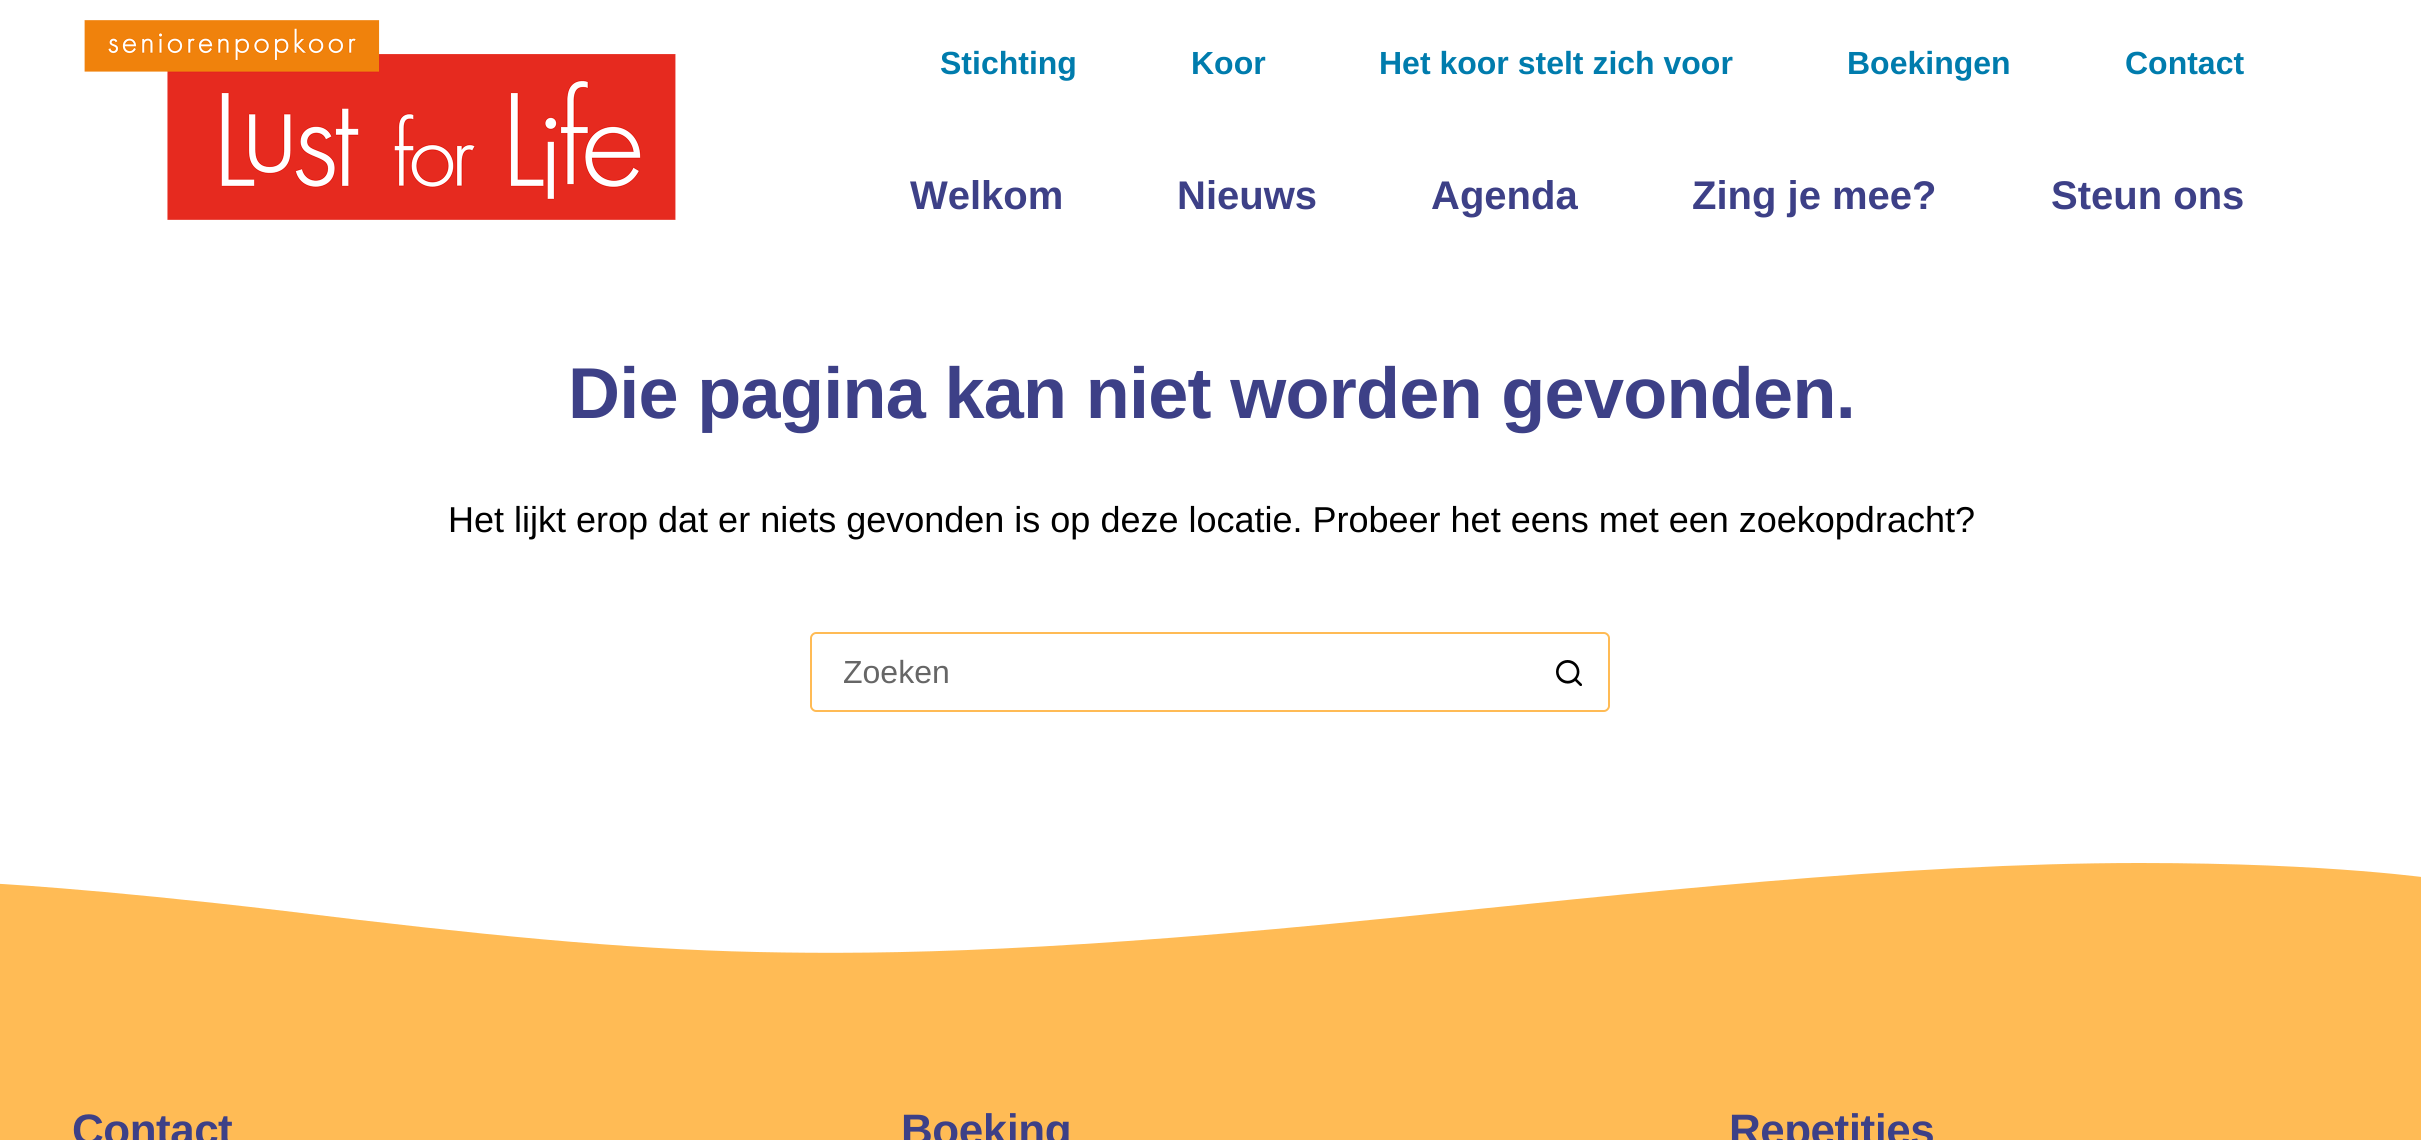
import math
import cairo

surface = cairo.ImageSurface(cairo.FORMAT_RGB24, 2421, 1140)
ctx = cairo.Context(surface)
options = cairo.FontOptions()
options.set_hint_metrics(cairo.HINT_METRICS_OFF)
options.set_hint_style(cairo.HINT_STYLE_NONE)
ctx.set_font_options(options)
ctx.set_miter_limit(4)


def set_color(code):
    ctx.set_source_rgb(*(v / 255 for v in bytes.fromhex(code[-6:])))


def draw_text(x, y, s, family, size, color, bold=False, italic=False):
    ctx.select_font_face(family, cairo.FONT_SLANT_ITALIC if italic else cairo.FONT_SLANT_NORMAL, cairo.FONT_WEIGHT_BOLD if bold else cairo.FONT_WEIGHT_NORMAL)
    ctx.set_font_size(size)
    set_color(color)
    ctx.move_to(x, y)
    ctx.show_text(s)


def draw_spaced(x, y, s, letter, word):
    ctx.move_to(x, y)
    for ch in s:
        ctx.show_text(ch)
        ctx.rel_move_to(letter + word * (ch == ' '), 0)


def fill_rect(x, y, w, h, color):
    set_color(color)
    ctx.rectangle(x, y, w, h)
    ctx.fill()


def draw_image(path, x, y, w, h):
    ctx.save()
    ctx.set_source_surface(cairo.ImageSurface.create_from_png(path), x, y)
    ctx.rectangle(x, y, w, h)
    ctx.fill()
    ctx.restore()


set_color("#ffffff")
ctx.paint()
draw_image("assets/img1.png", 84, 20, 592, 200)
draw_text(940, 74, "Stichting", "Liberation Sans", 32, "#007cad", bold=True)
draw_text(1191, 74, "Koor", "Liberation Sans", 32, "#007cad", bold=True)
draw_text(1379, 74, "Het koor stelt zich voor", "Liberation Sans", 32, "#007cad", bold=True)
draw_text(1847, 74, "Boekingen", "Liberation Sans", 32, "#007cad", bold=True)
draw_text(2125, 74, "Contact", "Liberation Sans", 32, "#007cad", bold=True)
draw_text(910, 209, "Welkom", "Liberation Sans", 40, "#3d4087", bold=True)
draw_text(1177, 209, "Nieuws", "Liberation Sans", 40, "#3d4087", bold=True)
draw_text(1431, 209, "Agenda", "Liberation Sans", 40, "#3d4087", bold=True)
draw_text(1692, 209, "Zing je mee?", "Liberation Sans", 40, "#3d4087", bold=True)
draw_text(2051, 209, "Steun ons", "Liberation Sans", 40, "#3d4087", bold=True)
ctx.set_font_size(72)
draw_spaced(568, 418, "Die pagina kan niet worden gevonden.", -0.7, 0)
draw_text(448, 532, "Het lijkt erop dat er niets gevonden is op deze locatie. Probeer het eens met een zoekopdracht?", "Liberation Sans", 36, "#000000")
set_color("#ffbb55")
ctx.set_fill_rule(cairo.FILL_RULE_EVEN_ODD)
ctx.new_path()
ctx.move_to(816, 632)
ctx.line_to(1530, 632)
ctx.line_to(1530, 712)
ctx.line_to(816, 712)
ctx.curve_to(813, 712, 810, 709, 810, 706)
ctx.line_to(810, 638)
ctx.curve_to(810, 635, 813, 632, 816, 632)
ctx.close_path()
ctx.move_to(816, 634)
ctx.line_to(1530, 634)
ctx.line_to(1530, 710)
ctx.line_to(816, 710)
ctx.curve_to(814, 710, 812, 708, 812, 706)
ctx.line_to(812, 638)
ctx.curve_to(812, 636, 814, 634, 816, 634)
ctx.close_path()
ctx.fill()
draw_text(843, 683, "Zoeken", "Liberation Sans", 32, "#666666")
set_color("#ffbb55")
ctx.new_path()
ctx.move_to(1530, 632)
ctx.line_to(1604, 632)
ctx.curve_to(1607, 632, 1610, 635, 1610, 638)
ctx.line_to(1610, 706)
ctx.curve_to(1610, 709, 1607, 712, 1604, 712)
ctx.line_to(1530, 712)
ctx.close_path()
ctx.move_to(1530, 634)
ctx.line_to(1604, 634)
ctx.curve_to(1606, 634, 1608, 636, 1608, 638)
ctx.line_to(1608, 706)
ctx.curve_to(1608, 708, 1606, 710, 1604, 710)
ctx.line_to(1530, 710)
ctx.close_path()
ctx.fill()
draw_image("assets/img2.png", 1556, 660, 26, 26)
fill_rect(0, 863, 2421, 277, "#ffbb55")
ctx.save()
ctx.set_fill_rule(cairo.FILL_RULE_WINDING)
ctx.rectangle(0, 830, 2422, 164)
ctx.clip()
set_color("#ffffff")
ctx.new_path()
ctx.move_to(2140, 863)
ctx.curve_to(1901, 863, 1628, 894, 1390, 918)
ctx.curve_to(1064, 951, 894, 955, 757, 952)
ctx.curve_to(621, 949, 480, 935, 285, 911)
ctx.curve_to(91, 888, -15, 883, -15, 883)
ctx.line_to(-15, 823)
ctx.line_to(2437, 823)
ctx.line_to(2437, 879)
ctx.curve_to(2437, 879, 2333, 863, 2140, 863)
ctx.close_path()
ctx.fill()
ctx.restore()
ctx.select_font_face("Liberation Sans", cairo.FONT_SLANT_NORMAL, cairo.FONT_WEIGHT_BOLD)
ctx.set_font_size(44)
set_color("#3d4087")
draw_spaced(72, 1145, "Contact", -0.5, 0)
draw_spaced(901, 1145, "Boeking", -0.5, 0)
draw_spaced(1729, 1145, "Repetities", -0.5, 0)
surface.write_to_png("output.png")
